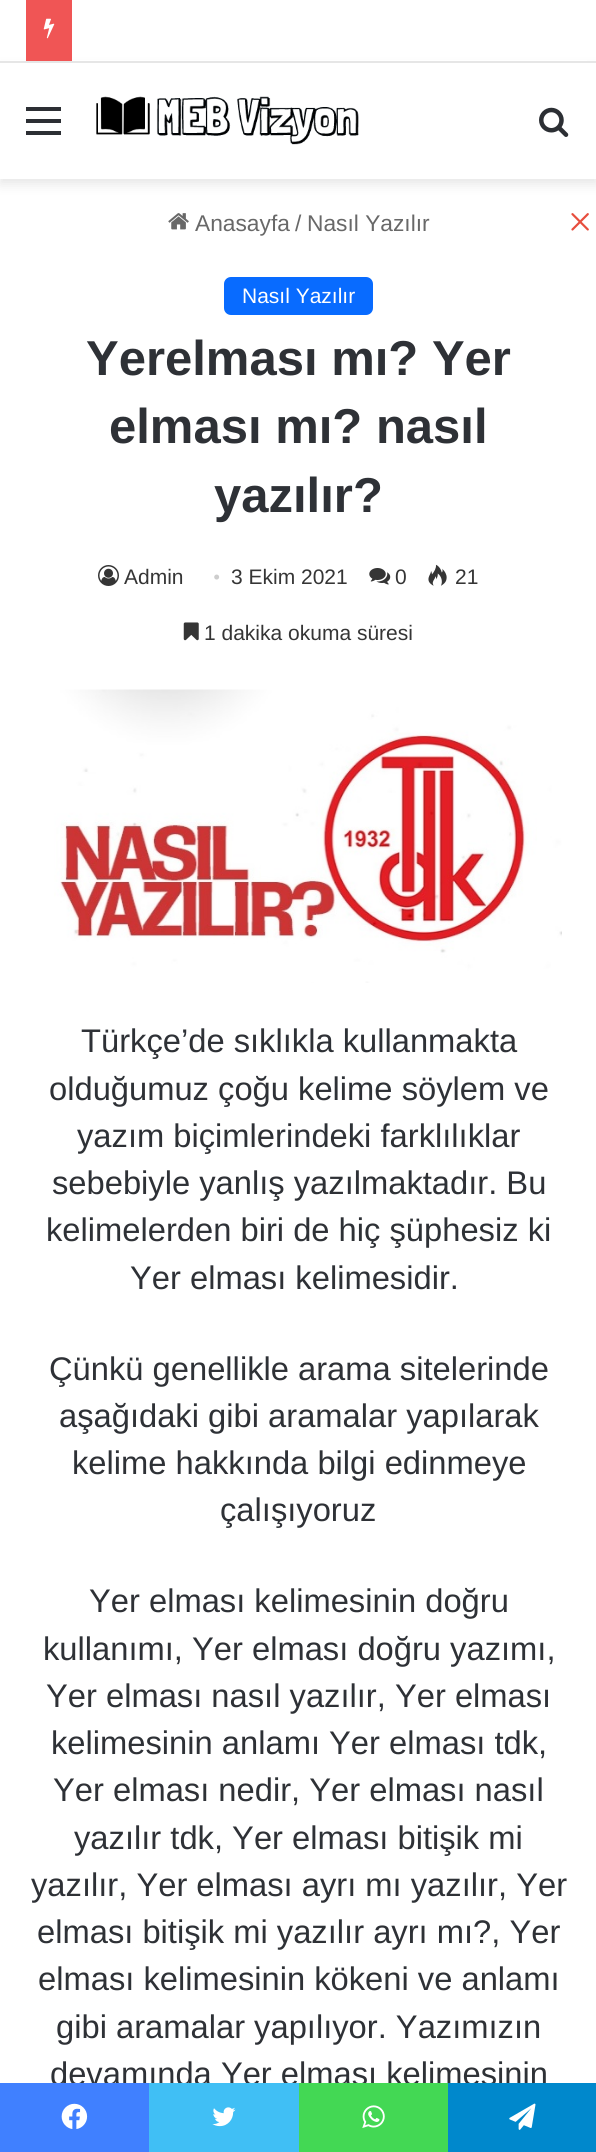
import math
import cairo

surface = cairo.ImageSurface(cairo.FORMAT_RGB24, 596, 2152)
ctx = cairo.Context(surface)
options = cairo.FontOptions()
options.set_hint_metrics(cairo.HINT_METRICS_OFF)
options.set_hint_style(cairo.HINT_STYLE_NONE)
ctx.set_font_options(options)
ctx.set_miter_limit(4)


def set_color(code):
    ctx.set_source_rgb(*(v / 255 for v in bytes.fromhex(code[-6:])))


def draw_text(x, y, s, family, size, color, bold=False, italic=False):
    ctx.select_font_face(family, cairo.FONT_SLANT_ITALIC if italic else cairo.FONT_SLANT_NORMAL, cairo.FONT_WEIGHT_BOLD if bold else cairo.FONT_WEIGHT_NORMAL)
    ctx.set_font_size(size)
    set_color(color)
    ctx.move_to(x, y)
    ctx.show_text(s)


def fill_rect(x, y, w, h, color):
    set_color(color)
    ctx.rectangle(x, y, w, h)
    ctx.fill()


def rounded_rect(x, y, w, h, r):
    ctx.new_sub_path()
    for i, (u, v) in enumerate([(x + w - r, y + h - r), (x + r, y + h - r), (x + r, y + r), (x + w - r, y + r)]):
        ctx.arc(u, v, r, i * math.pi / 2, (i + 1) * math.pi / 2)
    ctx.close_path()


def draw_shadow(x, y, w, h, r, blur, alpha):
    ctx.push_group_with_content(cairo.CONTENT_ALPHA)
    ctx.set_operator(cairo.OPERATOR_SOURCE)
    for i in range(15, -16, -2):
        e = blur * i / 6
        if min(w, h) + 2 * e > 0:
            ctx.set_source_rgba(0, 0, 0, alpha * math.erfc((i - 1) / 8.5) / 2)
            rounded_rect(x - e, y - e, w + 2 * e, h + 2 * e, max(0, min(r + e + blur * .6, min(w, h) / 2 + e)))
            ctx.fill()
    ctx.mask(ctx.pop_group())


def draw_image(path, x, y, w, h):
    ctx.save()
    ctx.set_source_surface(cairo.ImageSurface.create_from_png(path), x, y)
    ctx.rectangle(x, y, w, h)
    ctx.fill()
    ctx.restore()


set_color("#ffffff")
ctx.paint()
set_color("#000000")
draw_shadow(0, 68, 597, 116, 0, 6, 0.1)
fill_rect(10, 60, 577, 1, "#ffffff")
fill_rect(0, 61, 596, 2, "#e6e6e6")
fill_rect(26, 0, 46, 61, "#f05555")
draw_image("assets/img1.png", 43, 18, 12, 21)
fill_rect(0, 63, 596, 116, "#ffffff")
fill_rect(26, 119, 35, 4, "#2c2f34")
fill_rect(26, 107, 35, 4, "#2c2f34")
fill_rect(26, 131, 35, 4, "#2c2f34")
draw_image("assets/img2.png", 96, 96, 263, 49)
draw_image("assets/img3.png", 539, 107, 30, 30)
draw_image("assets/img4.png", 168, 213, 21, 17)
draw_text(195, 231, "Anasayfa", "Liberation Sans", 22.75, "#686868")
draw_text(295, 231, "/", "Liberation Sans", 22.75, "#686868")
draw_text(307, 231, "Nasıl Yazılır", "Liberation Sans", 22.75, "#686868")
set_color("#086bff")
rounded_rect(224, 277, 149, 38, 7)
ctx.fill()
draw_text(242, 303, "Nasıl Yazılır", "Liberation Sans", 21, "#ffffff")
draw_text(86, 375, "Yerelması mı? Yer", "Liberation Sans", 49, "#2e3136", bold=True)
draw_text(109, 443, "elması mı? nasıl", "Liberation Sans", 49, "#2e3136", bold=True)
draw_text(214, 512, "yazılır?", "Liberation Sans", 49, "#2e3136", bold=True)
draw_image("assets/img5.png", 98, 565, 21, 21)
draw_text(124, 584, "Admin", "Liberation Sans", 21, "#353535")
draw_text(213, 584, "•", "Liberation Serif", 21, "#cdcdcd")
draw_text(231, 584, "3 Ekim 2021", "Liberation Sans", 21, "#353535")
draw_image("assets/img6.png", 369, 568, 22, 17)
draw_text(395, 584, "0", "Liberation Sans", 21, "#353535")
draw_image("assets/img7.png", 428, 564, 19, 22)
draw_text(455, 584, "21", "Liberation Sans", 21, "#353535")
draw_image("assets/img8.png", 183, 622, 16, 19)
draw_text(204, 640, "1 dakika okuma süresi", "Liberation Sans", 21, "#353535")
draw_image("assets/img9.png", 54, 689, 508, 294)
draw_text(81, 1052, "Türkçe’de sıklıkla kullanmakta", "Liberation Sans", 32.7, "#2e3136")
draw_text(49, 1100, "olduğumuz çoğu kelime söylem ve", "Liberation Sans", 32.7, "#2e3136")
draw_text(77, 1147, "yazım biçimlerindeki farklılıklar", "Liberation Sans", 32.7, "#2e3136")
draw_text(52, 1194, "sebebiyle yanlış yazılmaktadır. Bu", "Liberation Sans", 32.7, "#2e3136")
draw_text(46, 1241, "kelimelerden biri de hiç şüphesiz ki", "Liberation Sans", 32.7, "#2e3136")
draw_text(130, 1289, "Yer elması kelimesidir.", "Liberation Sans", 32.7, "#2e3136")
draw_text(49, 1380, "Çünkü genellikle arama sitelerinde", "Liberation Sans", 32.7, "#2e3136")
draw_text(59, 1427, "aşağıdaki gibi aramalar yapılarak", "Liberation Sans", 32.7, "#2e3136")
draw_text(72, 1474, "kelime hakkında bilgi edinmeye", "Liberation Sans", 32.7, "#2e3136")
draw_text(220, 1521, "çalışıyoruz", "Liberation Sans", 32.7, "#2e3136")
draw_text(89, 1612, "Yer elması kelimesinin doğru", "Liberation Sans", 32.7, "#2e3136")
draw_text(43, 1660, "kullanımı, Yer elması doğru yazımı,", "Liberation Sans", 32.7, "#2e3136")
draw_text(46, 1707, "Yer elması nasıl yazılır, Yer elması", "Liberation Sans", 32.7, "#2e3136")
draw_text(51, 1754, "kelimesinin anlamı Yer elması tdk,", "Liberation Sans", 32.7, "#2e3136")
draw_text(53, 1801, "Yer elması nedir, Yer elması nasıl", "Liberation Sans", 32.7, "#2e3136")
draw_text(74, 1849, "yazılır tdk, Yer elması bitişik mi", "Liberation Sans", 32.7, "#2e3136")
draw_text(31, 1896, "yazılır, Yer elması ayrı mı yazılır, Yer", "Liberation Sans", 32.7, "#2e3136")
draw_text(37, 1943, "elması bitişik mi yazılır ayrı mı?, Yer", "Liberation Sans", 32.7, "#2e3136")
draw_text(38, 1990, "elması kelimesinin kökeni ve anlamı", "Liberation Sans", 32.7, "#2e3136")
draw_text(56, 2038, "gibi aramalar yapılıyor. Yazımızın", "Liberation Sans", 32.7, "#2e3136")
draw_text(50, 2085, "devamında Yer elması kelimesinin", "Liberation Sans", 32.7, "#2e3136")
draw_image("assets/img10.png", 571, 213, 18, 18)
fill_rect(0, 2083, 149, 69, "#4080ff")
draw_image("assets/img11.png", 61, 2103, 27, 26)
fill_rect(149, 2083, 150, 69, "#40bff5")
draw_image("assets/img12.png", 212, 2107, 24, 20)
fill_rect(299, 2083, 149, 69, "#43d854")
draw_image("assets/img13.png", 362, 2105, 23, 23)
fill_rect(448, 2083, 148, 69, "#0088cc")
draw_image("assets/img14.png", 509, 2103, 27, 27)
surface.write_to_png("output.png")
